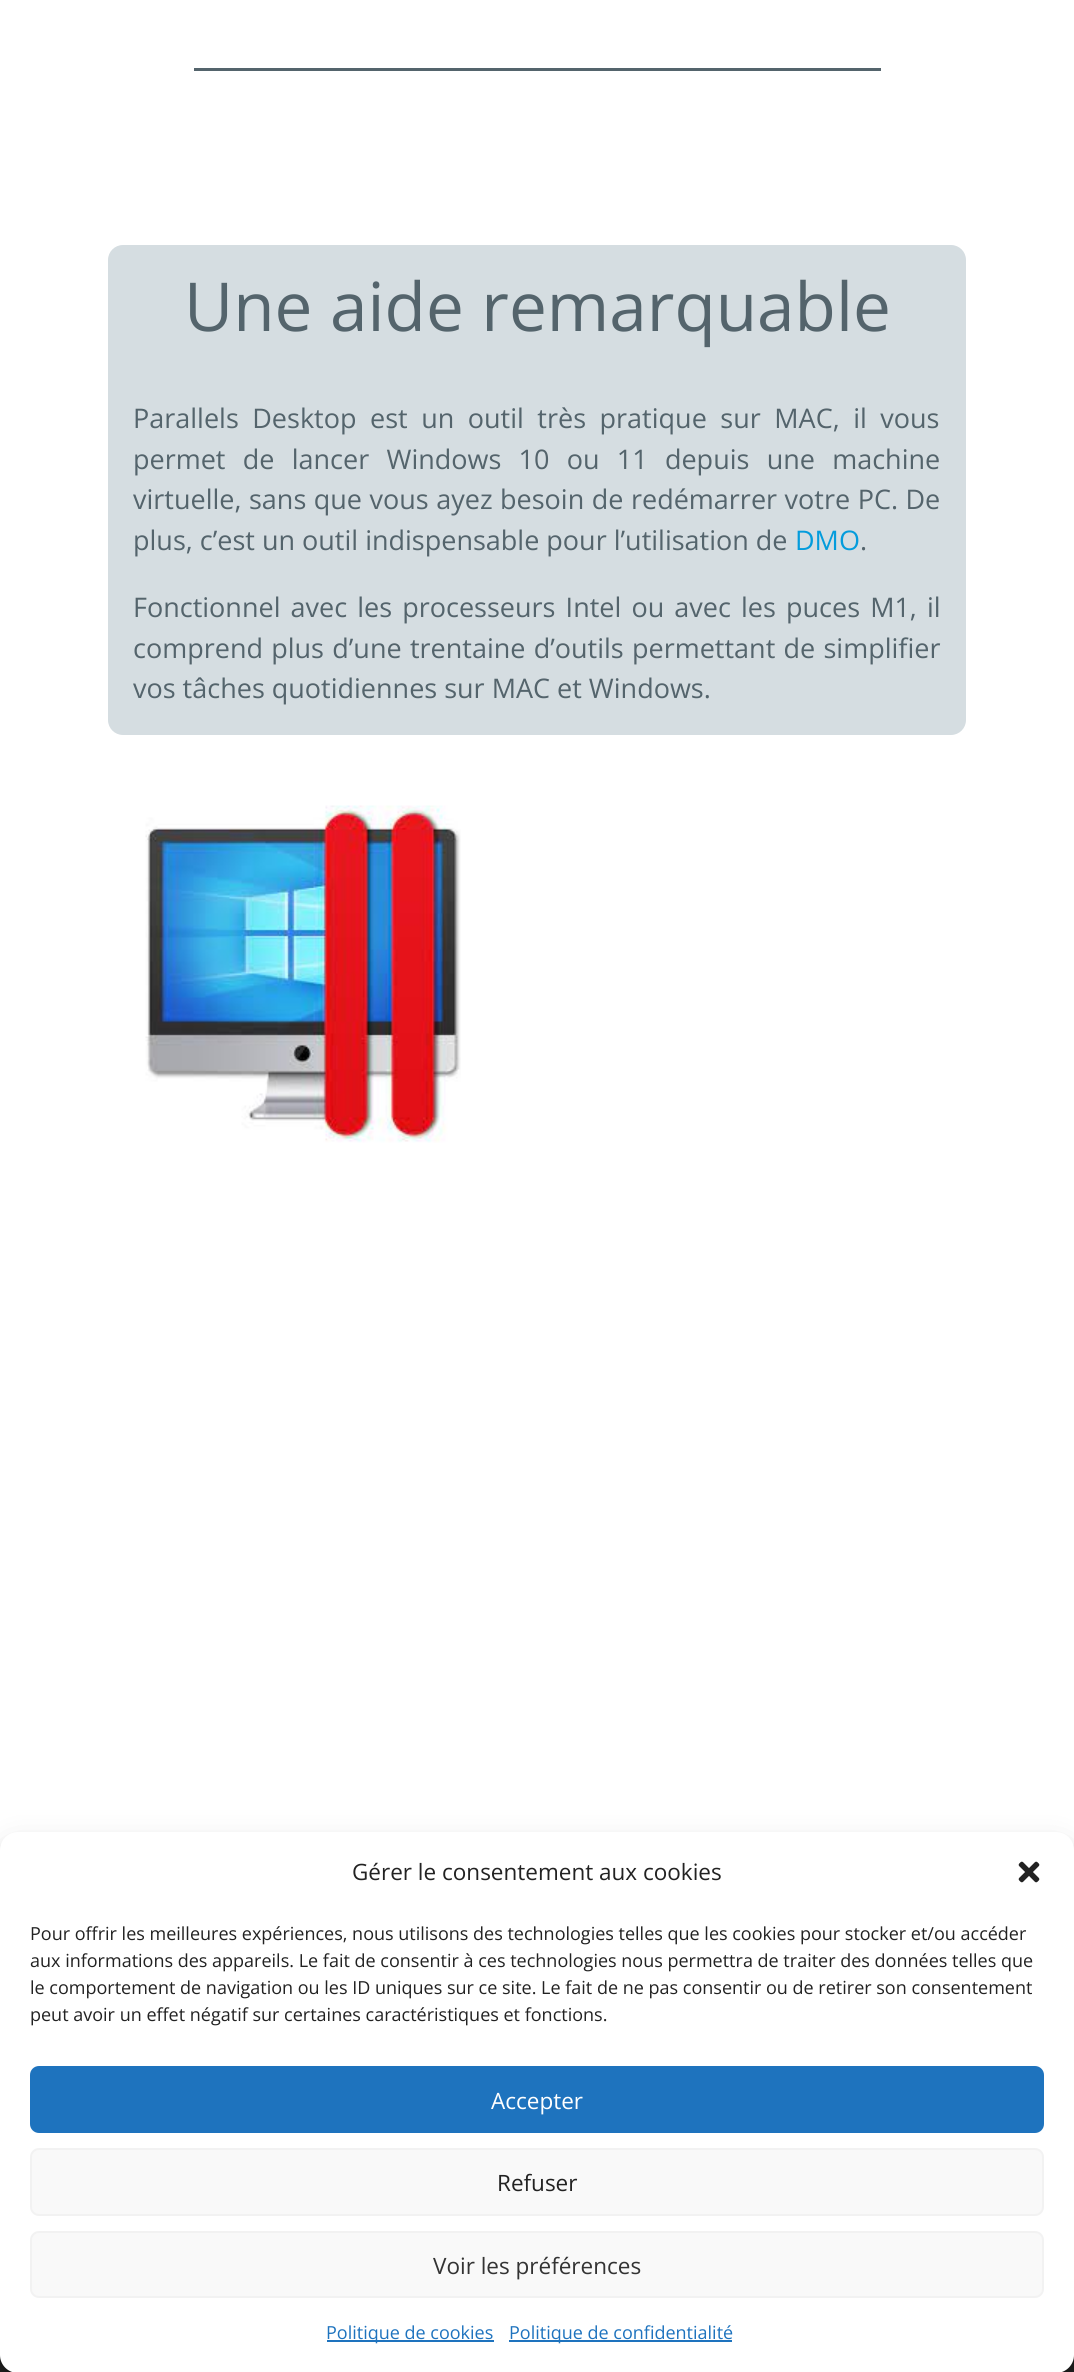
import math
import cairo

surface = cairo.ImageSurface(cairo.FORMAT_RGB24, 1074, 2372)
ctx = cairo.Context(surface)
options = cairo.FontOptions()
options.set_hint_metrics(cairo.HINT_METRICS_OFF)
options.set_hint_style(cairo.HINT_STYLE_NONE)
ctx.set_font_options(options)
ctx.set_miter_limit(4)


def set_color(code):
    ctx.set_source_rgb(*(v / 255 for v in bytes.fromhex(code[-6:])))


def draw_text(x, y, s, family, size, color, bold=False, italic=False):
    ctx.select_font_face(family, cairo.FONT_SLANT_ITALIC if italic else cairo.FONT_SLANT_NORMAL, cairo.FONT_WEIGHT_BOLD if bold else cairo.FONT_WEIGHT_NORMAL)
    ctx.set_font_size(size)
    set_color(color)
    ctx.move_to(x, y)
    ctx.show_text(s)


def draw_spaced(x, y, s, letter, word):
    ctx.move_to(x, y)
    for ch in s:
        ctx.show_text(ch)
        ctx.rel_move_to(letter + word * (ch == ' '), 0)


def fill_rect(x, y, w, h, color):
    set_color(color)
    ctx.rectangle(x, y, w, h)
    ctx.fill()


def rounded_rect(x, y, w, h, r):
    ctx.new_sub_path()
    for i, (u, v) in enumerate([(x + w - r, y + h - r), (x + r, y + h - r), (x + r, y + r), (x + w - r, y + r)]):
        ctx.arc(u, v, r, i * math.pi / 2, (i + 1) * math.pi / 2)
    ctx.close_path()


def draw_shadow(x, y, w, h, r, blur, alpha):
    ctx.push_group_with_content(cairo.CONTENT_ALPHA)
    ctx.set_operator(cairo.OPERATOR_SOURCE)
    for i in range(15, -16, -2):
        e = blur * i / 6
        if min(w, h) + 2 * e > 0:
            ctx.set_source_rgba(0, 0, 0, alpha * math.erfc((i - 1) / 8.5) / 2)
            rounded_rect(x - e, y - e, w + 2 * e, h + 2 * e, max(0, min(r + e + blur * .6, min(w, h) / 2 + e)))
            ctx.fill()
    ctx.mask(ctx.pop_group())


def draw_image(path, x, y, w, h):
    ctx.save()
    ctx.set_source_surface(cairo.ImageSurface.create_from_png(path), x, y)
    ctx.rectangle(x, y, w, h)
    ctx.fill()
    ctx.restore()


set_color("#ffffff")
ctx.paint()
fill_rect(194, 68, 687, 3, "#54646c")
set_color("#d5dde1")
rounded_rect(108, 245, 858, 490, 15)
ctx.fill()
draw_text(184, 331, "Une aide remarquable", "Open Sans", 67.5, "#54646c")
ctx.set_font_size(27)
draw_spaced(133, 428, "Parallels Desktop est un outil très pratique sur MAC, il vous", 0, 6.5)
draw_spaced(133, 469, "permet de lancer Windows 10 ou 11 depuis une machine", 0, 10.25)
draw_spaced(133, 509, "virtuelle, sans que vous ayez besoin de redémarrer votre PC. De", 0, 0.5)
draw_text(133, 550, "plus, c’est un outil indispensable pour l’utilisation de", "Open Sans", 27, "#54646c")
draw_text(795, 550, "DMO", "Open Sans", 27, "#049cdc")
draw_text(860, 550, ".", "Open Sans", 27, "#54646c")
draw_spaced(133, 617, "Fonctionnel avec les processeurs Intel ou avec les puces M1, il", 0, 3.1)
draw_spaced(133, 658, "comprend plus d’une trentaine d’outils permettant de simplifier", 0, 1.25)
draw_text(133, 698, "vos tâches quotidiennes sur MAC et Windows.", "Open Sans", 27, "#54646c")
draw_image("assets/img1.png", 145, 805, 316, 338)
fill_rect(0, 2355, 1074, 17, "#222222")
draw_image("assets/img2.png", 0, 2355, 1074, 17)
set_color("#000000")
draw_shadow(0, 1841, 1074, 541, 18, 4.5, 0.23)
draw_shadow(0, 1847, 1074, 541, 18, 15, 0.19)
set_color("#ffffff")
rounded_rect(0, 1832, 1074, 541, 18)
ctx.fill()
draw_text(352, 1880, "Gérer le consentement aux cookies", "Open Sans", 22.5, "#222222")
draw_image("assets/img3.png", 1018, 1861, 22, 22)
draw_text(30, 1940, "Pour offrir les meilleures expériences, nous utilisons des technologies telles que les cookies pour stocker et/ou accéder", "Open Sans", 18, "#222222")
draw_text(30, 1967, "aux informations des appareils. Le fait de consentir à ces technologies nous permettra de traiter des données telles que", "Open Sans", 18, "#222222")
draw_text(30, 1994, "le comportement de navigation ou les ID uniques sur ce site. Le fait de ne pas consentir ou de retirer son consentement", "Open Sans", 18, "#222222")
draw_text(30, 2021, "peut avoir un effet négatif sur certaines caractéristiques et fonctions.", "Open Sans", 18, "#222222")
set_color("#1e73be")
rounded_rect(31, 2067, 1012, 65, 8)
ctx.fill_preserve()
ctx.stroke()
draw_text(491, 2109, "Accepter", "Open Sans", 22.5, "#ffffff")
set_color("#f9f9f9")
rounded_rect(31, 2149, 1012, 66, 8)
ctx.fill_preserve()
set_color("#f2f2f2")
ctx.stroke()
draw_text(497, 2191, "Refuser", "Open Sans", 22.5, "#222222")
set_color("#f9f9f9")
rounded_rect(31, 2232, 1012, 65, 8)
ctx.fill_preserve()
set_color("#f2f2f2")
ctx.stroke()
draw_text(433, 2274, "Voir les préférences", "Open Sans", 22.5, "#333333")
fill_rect(327, 2340, 167, 2, "#1e73be")
draw_text(326, 2339, "Politique de cookies", "Open Sans", 18, "#1e73be")
fill_rect(509, 2340, 223, 2, "#1e73be")
draw_text(509, 2339, "Politique de confidentialité", "Open Sans", 18, "#1e73be")
surface.write_to_png("output.png")
